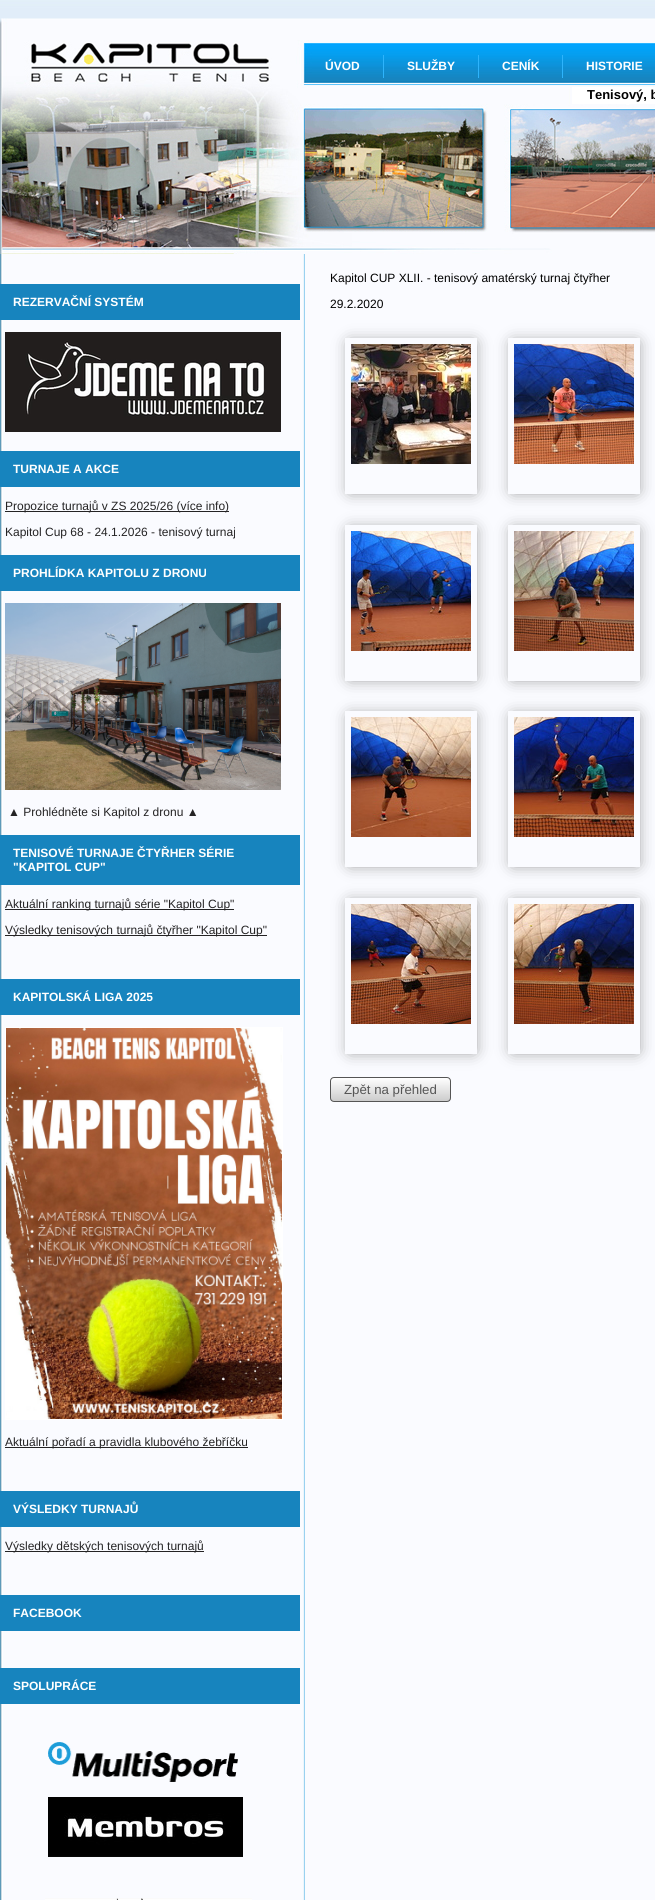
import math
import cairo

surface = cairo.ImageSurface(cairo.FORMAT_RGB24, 655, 1900)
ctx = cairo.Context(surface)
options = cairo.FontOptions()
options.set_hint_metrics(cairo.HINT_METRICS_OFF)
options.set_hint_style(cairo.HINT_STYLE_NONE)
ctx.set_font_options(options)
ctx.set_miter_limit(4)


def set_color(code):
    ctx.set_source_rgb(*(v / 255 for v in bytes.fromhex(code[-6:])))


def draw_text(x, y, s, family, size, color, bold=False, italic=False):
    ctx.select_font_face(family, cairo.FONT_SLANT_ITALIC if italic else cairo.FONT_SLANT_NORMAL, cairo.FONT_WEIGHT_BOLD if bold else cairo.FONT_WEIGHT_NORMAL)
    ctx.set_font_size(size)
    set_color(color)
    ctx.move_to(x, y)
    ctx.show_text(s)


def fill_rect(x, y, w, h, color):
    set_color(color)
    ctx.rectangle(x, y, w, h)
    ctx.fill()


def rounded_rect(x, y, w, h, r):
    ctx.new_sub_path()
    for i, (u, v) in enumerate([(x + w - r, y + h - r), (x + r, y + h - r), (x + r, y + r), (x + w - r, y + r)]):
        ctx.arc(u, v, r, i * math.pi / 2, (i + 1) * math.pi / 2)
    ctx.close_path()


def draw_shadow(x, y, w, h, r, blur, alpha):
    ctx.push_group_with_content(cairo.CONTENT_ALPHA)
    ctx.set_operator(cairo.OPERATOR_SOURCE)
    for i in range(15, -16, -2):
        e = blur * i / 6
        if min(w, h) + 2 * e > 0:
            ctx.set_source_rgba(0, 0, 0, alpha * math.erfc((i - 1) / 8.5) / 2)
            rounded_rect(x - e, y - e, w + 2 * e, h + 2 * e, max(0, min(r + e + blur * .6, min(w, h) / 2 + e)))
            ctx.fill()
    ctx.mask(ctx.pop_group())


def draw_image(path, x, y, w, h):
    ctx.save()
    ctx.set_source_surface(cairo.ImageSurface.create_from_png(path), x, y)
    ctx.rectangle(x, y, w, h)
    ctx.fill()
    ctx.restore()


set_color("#ffffff")
ctx.paint()
draw_image("assets/img1.png", 0, 0, 655, 18)
draw_image("assets/img2.png", 0, 18, 655, 236)
fill_rect(300, 50, 1, 33, "#ffffff")
draw_text(325, 70, "ÚVOD", "Liberation Sans", 12, "#ffffff", bold=True)
fill_rect(383, 55, 1, 23, "#2eb4fc")
draw_text(407, 70, "SLUŽBY", "Liberation Sans", 12, "#ffffff", bold=True)
fill_rect(478, 55, 1, 23, "#2eb4fc")
draw_text(502, 70, "CENÍK", "Liberation Sans", 12, "#ffffff", bold=True)
fill_rect(562, 55, 1, 23, "#2eb4fc")
draw_text(586, 70, "HISTORIE", "Liberation Sans", 12, "#ffffff", bold=True)
draw_text(587, 99, "Tenisový, b", "Liberation Sans", 13, "#000000", bold=True)
draw_image("assets/img3.png", 0, 254, 655, 1646)
fill_rect(0, 284, 300, 36, "#1784be")
draw_text(13, 306, "REZERVAČNÍ SYSTÉM", "Liberation Sans", 12, "#ffffff", bold=True)
draw_image("assets/img4.png", 5, 332, 276, 100)
fill_rect(0, 451, 300, 36, "#1784be")
draw_text(13, 473, "TURNAJE A AKCE", "Liberation Sans", 12, "#ffffff", bold=True)
fill_rect(5, 511, 224, 1, "#242324")
draw_text(5, 510, "Propozice turnajů v ZS 2025/26 (více info)", "Liberation Sans", 12, "#242324")
draw_text(5, 536, "Kapitol Cup 68 - 24.1.2026 - tenisový turnaj", "Liberation Sans", 12, "#242324")
fill_rect(0, 555, 300, 36, "#1784be")
draw_text(13, 577, "PROHLÍDKA KAPITOLU Z DRONU", "Liberation Sans", 12, "#ffffff", bold=True)
draw_image("assets/img5.png", 5, 603, 276, 187)
draw_text(8, 816, "▲ Prohlédněte si Kapitol z dronu ▲", "Liberation Sans", 12, "#242324")
fill_rect(0, 835, 300, 50, "#1784be")
draw_text(13, 857, "TENISOVÉ TURNAJE ČTYŘHER SÉRIE", "Liberation Sans", 12, "#ffffff", bold=True)
draw_text(13, 871, "\"KAPITOL CUP\"", "Liberation Sans", 12, "#ffffff", bold=True)
fill_rect(5, 909, 229, 1, "#242324")
draw_text(5, 908, "Aktuální ranking turnajů série \"Kapitol Cup\"", "Liberation Sans", 12, "#242324")
fill_rect(5, 935, 262, 1, "#242324")
draw_text(5, 934, "Výsledky tenisových turnajů čtyřher \"Kapitol Cup\"", "Liberation Sans", 12, "#242324")
fill_rect(0, 979, 300, 36, "#1784be")
draw_text(13, 1001, "KAPITOLSKÁ LIGA 2025", "Liberation Sans", 12, "#ffffff", bold=True)
ctx.rectangle(5.5, 1027.5, 277, 392)
ctx.set_line_width(1)
ctx.stroke()
draw_image("assets/img6.png", 6, 1028, 276, 391)
fill_rect(5, 1447, 243, 1, "#242324")
draw_text(5, 1446, "Aktuální pořadí a pravidla klubového žebříčku", "Liberation Sans", 12, "#242324")
fill_rect(0, 1491, 300, 36, "#1784be")
draw_text(13, 1513, "VÝSLEDKY TURNAJŮ", "Liberation Sans", 12, "#ffffff", bold=True)
fill_rect(5, 1551, 199, 1, "#242324")
draw_text(5, 1550, "Výsledky dětských tenisových turnajů", "Liberation Sans", 12, "#242324")
fill_rect(0, 1595, 300, 36, "#1784be")
draw_text(13, 1617, "FACEBOOK", "Liberation Sans", 12, "#ffffff", bold=True)
fill_rect(0, 1668, 300, 36, "#1784be")
draw_text(13, 1690, "SPOLUPRÁCE", "Liberation Sans", 12, "#ffffff", bold=True)
draw_image("assets/img7.png", 48, 1742, 190, 40)
draw_image("assets/img8.png", 48, 1797, 195, 60)
draw_image("assets/img9.png", 45, 1898, 207, 2)
draw_text(330, 282, "Kapitol CUP XLII. - tenisový amatérský turnaj čtyřher", "Liberation Sans", 12, "#000000")
draw_text(330, 308, "29.2.2020", "Liberation Sans", 12, "#000000")
ctx.save()
ctx.set_fill_rule(cairo.FILL_RULE_EVEN_ODD)
ctx.new_path()
ctx.move_to(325, 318)
ctx.line_to(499, 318)
ctx.line_to(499, 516)
ctx.line_to(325, 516)
ctx.close_path()
ctx.move_to(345, 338)
ctx.line_to(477, 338)
ctx.line_to(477, 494)
ctx.line_to(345, 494)
ctx.close_path()
ctx.clip()
set_color("#888888")
draw_shadow(350, 343, 124, 148, 0, 8, 1)
ctx.restore()
draw_image("assets/img10.png", 351, 344, 120, 120)
ctx.save()
ctx.set_fill_rule(cairo.FILL_RULE_EVEN_ODD)
ctx.new_path()
ctx.move_to(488, 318)
ctx.line_to(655, 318)
ctx.line_to(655, 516)
ctx.line_to(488, 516)
ctx.close_path()
ctx.move_to(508, 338)
ctx.line_to(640, 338)
ctx.line_to(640, 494)
ctx.line_to(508, 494)
ctx.close_path()
ctx.clip()
set_color("#888888")
draw_shadow(513, 343, 124, 148, 0, 8, 1)
ctx.restore()
draw_image("assets/img11.png", 514, 344, 120, 120)
ctx.save()
ctx.set_fill_rule(cairo.FILL_RULE_EVEN_ODD)
ctx.new_path()
ctx.move_to(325, 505)
ctx.line_to(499, 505)
ctx.line_to(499, 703)
ctx.line_to(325, 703)
ctx.close_path()
ctx.move_to(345, 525)
ctx.line_to(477, 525)
ctx.line_to(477, 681)
ctx.line_to(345, 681)
ctx.close_path()
ctx.clip()
set_color("#888888")
draw_shadow(350, 530, 124, 148, 0, 8, 1)
ctx.restore()
draw_image("assets/img12.png", 351, 531, 120, 120)
ctx.save()
ctx.set_fill_rule(cairo.FILL_RULE_EVEN_ODD)
ctx.new_path()
ctx.move_to(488, 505)
ctx.line_to(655, 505)
ctx.line_to(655, 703)
ctx.line_to(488, 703)
ctx.close_path()
ctx.move_to(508, 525)
ctx.line_to(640, 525)
ctx.line_to(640, 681)
ctx.line_to(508, 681)
ctx.close_path()
ctx.clip()
set_color("#888888")
draw_shadow(513, 530, 124, 148, 0, 8, 1)
ctx.restore()
draw_image("assets/img13.png", 514, 531, 120, 120)
ctx.save()
ctx.set_fill_rule(cairo.FILL_RULE_EVEN_ODD)
ctx.new_path()
ctx.move_to(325, 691)
ctx.line_to(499, 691)
ctx.line_to(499, 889)
ctx.line_to(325, 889)
ctx.close_path()
ctx.move_to(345, 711)
ctx.line_to(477, 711)
ctx.line_to(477, 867)
ctx.line_to(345, 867)
ctx.close_path()
ctx.clip()
set_color("#888888")
draw_shadow(350, 716, 124, 148, 0, 8, 1)
ctx.restore()
draw_image("assets/img14.png", 351, 717, 120, 120)
ctx.save()
ctx.set_fill_rule(cairo.FILL_RULE_EVEN_ODD)
ctx.new_path()
ctx.move_to(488, 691)
ctx.line_to(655, 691)
ctx.line_to(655, 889)
ctx.line_to(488, 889)
ctx.close_path()
ctx.move_to(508, 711)
ctx.line_to(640, 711)
ctx.line_to(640, 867)
ctx.line_to(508, 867)
ctx.close_path()
ctx.clip()
set_color("#888888")
draw_shadow(513, 716, 124, 148, 0, 8, 1)
ctx.restore()
draw_image("assets/img15.png", 514, 717, 120, 120)
ctx.save()
ctx.set_fill_rule(cairo.FILL_RULE_EVEN_ODD)
ctx.new_path()
ctx.move_to(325, 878)
ctx.line_to(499, 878)
ctx.line_to(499, 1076)
ctx.line_to(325, 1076)
ctx.close_path()
ctx.move_to(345, 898)
ctx.line_to(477, 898)
ctx.line_to(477, 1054)
ctx.line_to(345, 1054)
ctx.close_path()
ctx.clip()
set_color("#888888")
draw_shadow(350, 903, 124, 148, 0, 8, 1)
ctx.restore()
draw_image("assets/img16.png", 351, 904, 120, 120)
ctx.save()
ctx.set_fill_rule(cairo.FILL_RULE_EVEN_ODD)
ctx.new_path()
ctx.move_to(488, 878)
ctx.line_to(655, 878)
ctx.line_to(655, 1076)
ctx.line_to(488, 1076)
ctx.close_path()
ctx.move_to(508, 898)
ctx.line_to(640, 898)
ctx.line_to(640, 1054)
ctx.line_to(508, 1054)
ctx.close_path()
ctx.clip()
set_color("#888888")
draw_shadow(513, 903, 124, 148, 0, 8, 1)
ctx.restore()
draw_image("assets/img17.png", 514, 904, 120, 120)
ctx.save()
rounded_rect(330, 1077, 121, 25, 4)
ctx.clip()
gradient = cairo.LinearGradient(331, 1078, 331, 1101)
gradient.add_color_stop_rgba(0, 1, 1, 1, 1)
gradient.add_color_stop_rgba(1, 0.8, 0.8, 0.8, 1)
ctx.set_source(gradient)
ctx.rectangle(330, 1078, 121, 23)
ctx.fill()
ctx.restore()
rounded_rect(330.5, 1077.5, 120, 24, 3.5)
set_color("#555555")
ctx.stroke()
draw_text(344, 1094, "Zpět na přehled", "Liberation Sans", 13.25, "#555555")
surface.write_to_png("output.png")
